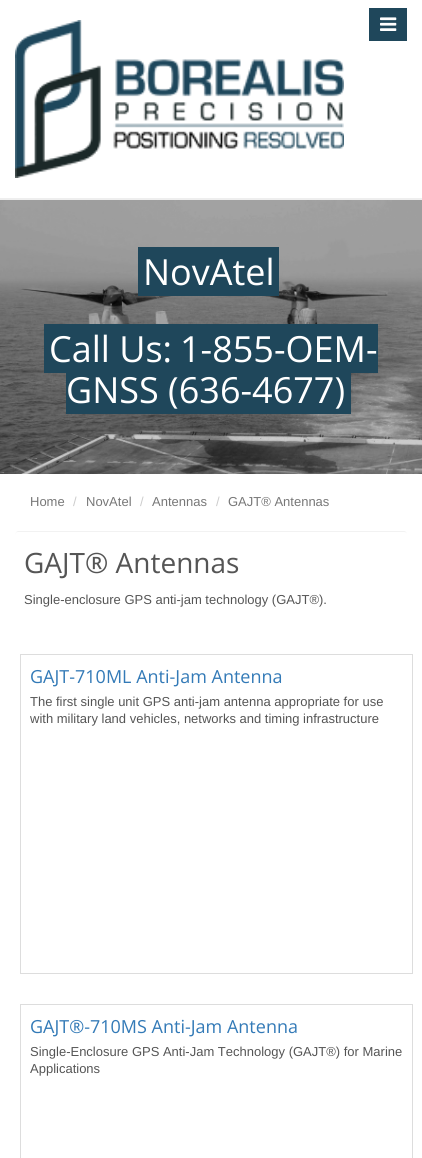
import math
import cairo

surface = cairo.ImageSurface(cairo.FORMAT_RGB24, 422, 1158)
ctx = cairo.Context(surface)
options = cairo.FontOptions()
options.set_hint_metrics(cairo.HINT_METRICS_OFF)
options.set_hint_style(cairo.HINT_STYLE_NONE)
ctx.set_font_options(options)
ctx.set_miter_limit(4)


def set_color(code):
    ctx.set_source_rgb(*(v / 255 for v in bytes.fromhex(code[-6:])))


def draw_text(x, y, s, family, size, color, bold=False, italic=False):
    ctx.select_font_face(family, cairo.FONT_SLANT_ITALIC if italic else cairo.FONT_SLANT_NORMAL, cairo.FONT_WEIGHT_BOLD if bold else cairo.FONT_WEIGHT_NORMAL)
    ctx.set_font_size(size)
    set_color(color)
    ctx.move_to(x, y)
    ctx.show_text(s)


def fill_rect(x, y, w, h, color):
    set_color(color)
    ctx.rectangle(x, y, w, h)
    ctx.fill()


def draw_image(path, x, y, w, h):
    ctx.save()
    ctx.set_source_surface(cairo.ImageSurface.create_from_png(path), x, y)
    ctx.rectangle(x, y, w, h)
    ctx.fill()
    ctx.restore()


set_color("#ffffff")
ctx.paint()
fill_rect(0, 198, 422, 2, "#eeeeee")
draw_image("assets/img1.png", 15, 20, 329, 158)
fill_rect(369, 8, 38, 33, "#1f475b")
draw_image("assets/img2.png", 380, 17, 17, 14)
draw_image("assets/img3.png", 0, 200, 422, 274)
fill_rect(138, 247, 141, 49, "#1f475b")
draw_text(143, 285, "NovAtel", "Open Sans", 36, "#ffffff")
fill_rect(44, 324, 334, 49, "#1f475b")
draw_text(49, 362, "Call Us:", "Open Sans", 36, "#ffffff")
draw_text(180, 362, "1-855-OEM-", "Open Sans", 36, "#ffffff")
fill_rect(66, 373, 285, 41, "#1f475b")
draw_text(66, 403, "GNSS (636-4677)", "Open Sans", 36, "#ffffff")
draw_text(30, 506, "Home", "Liberation Sans", 13, "#777777")
draw_text(73, 506, "/", "Liberation Sans", 13, "#cccccc")
draw_text(86, 506, "NovAtel", "Liberation Sans", 13, "#777777")
draw_text(140, 506, "/", "Liberation Sans", 13, "#cccccc")
draw_text(152, 506, "Antennas", "Liberation Sans", 13, "#777777")
draw_text(216, 506, "/", "Liberation Sans", 13, "#cccccc")
draw_text(228, 506, "GAJT® Antennas", "Liberation Sans", 13, "#777777")
set_color("#f2f2f2")
ctx.new_path()
ctx.move_to(18, 532)
ctx.line_to(404, 532)
ctx.curve_to(406, 532, 407, 533, 407, 535)
ctx.curve_to(407, 533, 406, 531, 404, 531)
ctx.line_to(18, 531)
ctx.line_to(16, 532)
ctx.line_to(15, 535)
ctx.curve_to(15, 533, 16, 532, 18, 532)
ctx.close_path()
ctx.fill()
draw_text(24, 573, "GAJT® Antennas", "Open Sans", 28, "#555555")
draw_text(24, 604, "Single-enclosure GPS anti-jam technology (GAJT®).", "Liberation Sans", 13, "#555555")
ctx.rectangle(20.5, 654.5, 392, 319)
set_color("#dddddd")
ctx.set_line_width(1)
ctx.stroke()
draw_text(30, 683, "GAJT-710ML Anti-Jam Antenna", "Open Sans", 18, "#337ab7")
draw_text(30, 706, "The first single unit GPS anti-jam antenna appropriate for use", "Liberation Sans", 13, "#555555")
draw_text(30, 723, "with military land vehicles, networks and timing infrastructure", "Liberation Sans", 13, "#555555")
ctx.rectangle(20.5, 1004.5, 392, 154)
set_color("#dddddd")
ctx.stroke()
draw_text(30, 1033, "GAJT®-710MS Anti-Jam Antenna", "Open Sans", 18, "#337ab7")
draw_text(30, 1056, "Single-Enclosure GPS Anti-Jam Technology (GAJT®) for Marine", "Liberation Sans", 13, "#555555")
draw_text(30, 1073, "Applications", "Liberation Sans", 13, "#555555")
surface.write_to_png("output.png")
